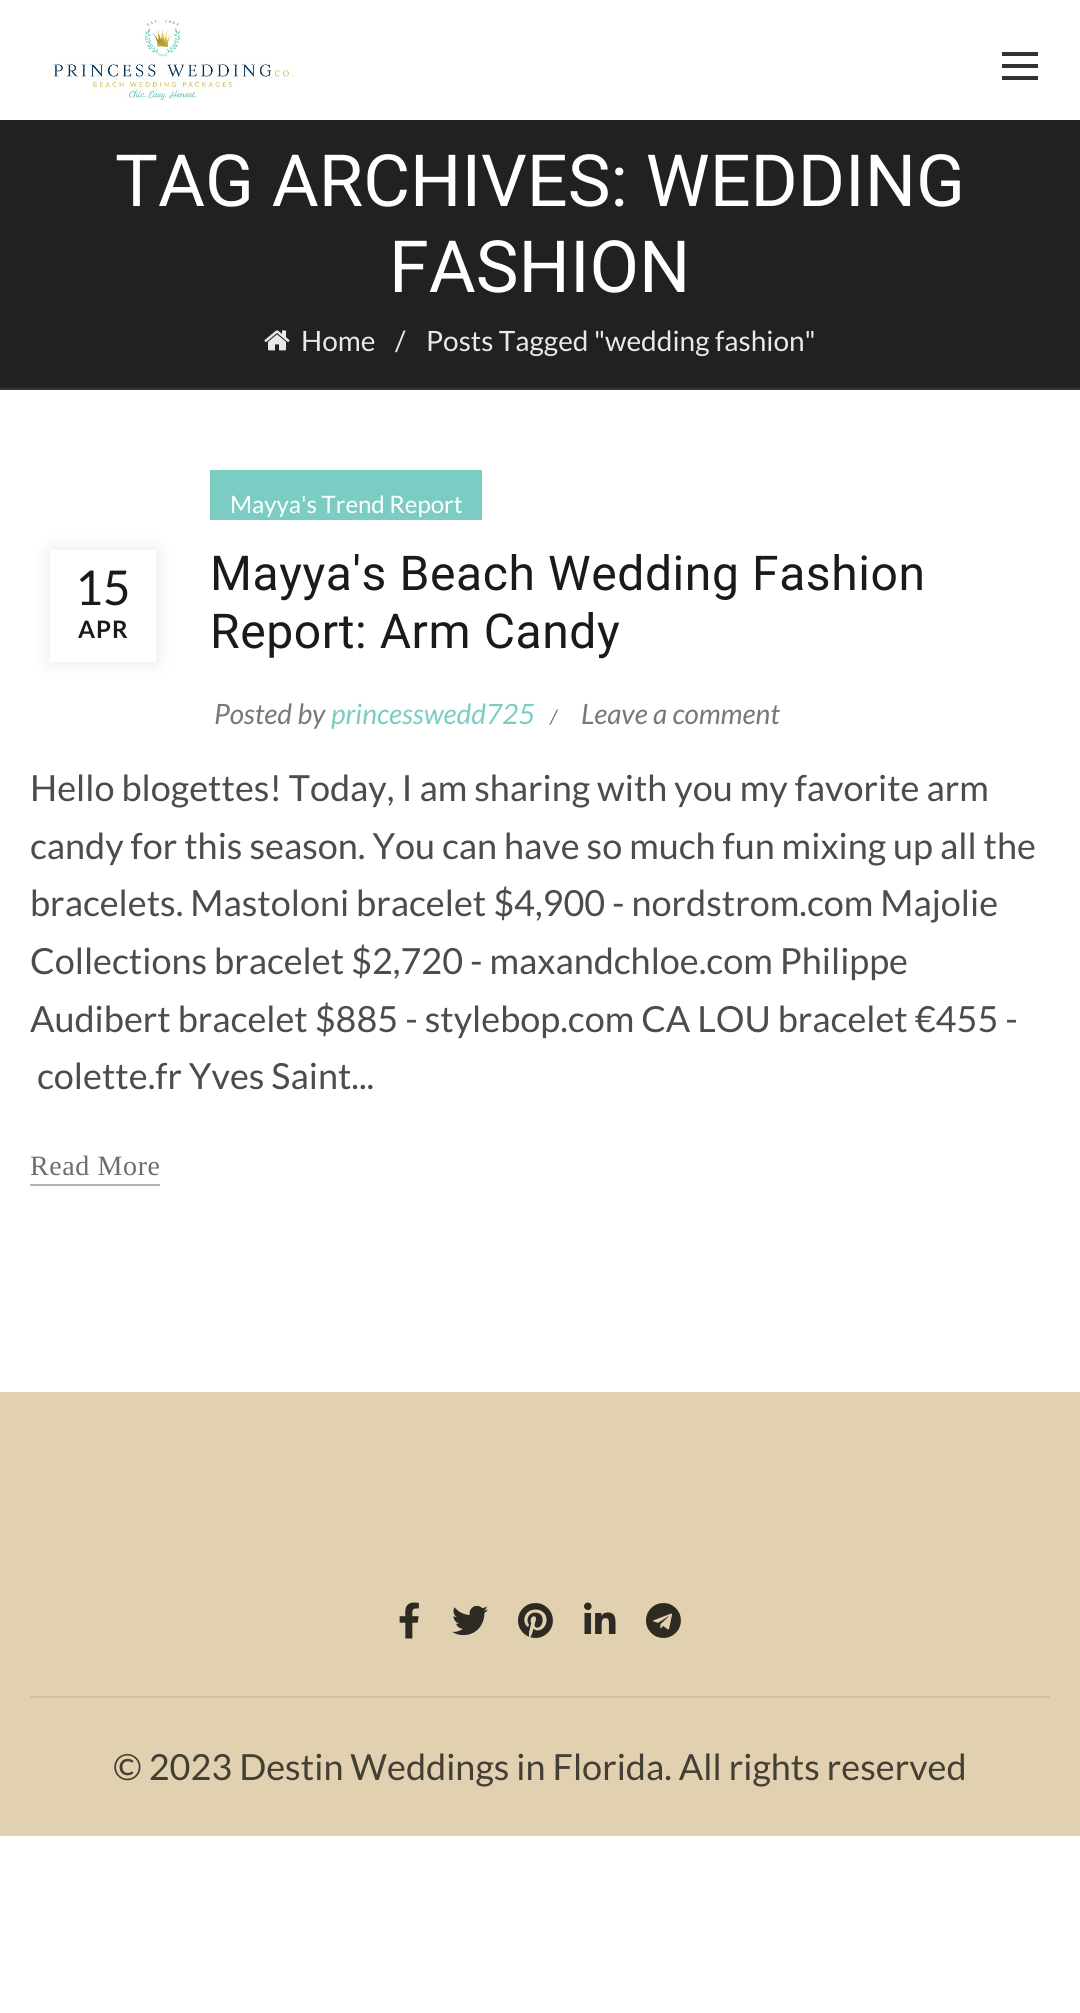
import math
import cairo

surface = cairo.ImageSurface(cairo.FORMAT_RGB24, 1080, 2013)
ctx = cairo.Context(surface)
options = cairo.FontOptions()
options.set_hint_metrics(cairo.HINT_METRICS_OFF)
options.set_hint_style(cairo.HINT_STYLE_NONE)
ctx.set_font_options(options)
ctx.set_miter_limit(4)


def set_color(code):
    ctx.set_source_rgb(*(v / 255 for v in bytes.fromhex(code[-6:])))


def draw_text(x, y, s, family, size, color, bold=False, italic=False):
    ctx.select_font_face(family, cairo.FONT_SLANT_ITALIC if italic else cairo.FONT_SLANT_NORMAL, cairo.FONT_WEIGHT_BOLD if bold else cairo.FONT_WEIGHT_NORMAL)
    ctx.set_font_size(size)
    set_color(color)
    ctx.move_to(x, y)
    ctx.show_text(s)


def draw_spaced(x, y, s, letter, word):
    ctx.move_to(x, y)
    for ch in s:
        ctx.show_text(ch)
        ctx.rel_move_to(letter + word * (ch == ' '), 0)


def fill_rect(x, y, w, h, color):
    set_color(color)
    ctx.rectangle(x, y, w, h)
    ctx.fill()


def rounded_rect(x, y, w, h, r):
    ctx.new_sub_path()
    for i, (u, v) in enumerate([(x + w - r, y + h - r), (x + r, y + h - r), (x + r, y + r), (x + w - r, y + r)]):
        ctx.arc(u, v, r, i * math.pi / 2, (i + 1) * math.pi / 2)
    ctx.close_path()


def draw_shadow(x, y, w, h, r, blur, alpha):
    ctx.push_group_with_content(cairo.CONTENT_ALPHA)
    ctx.set_operator(cairo.OPERATOR_SOURCE)
    for i in range(15, -16, -2):
        e = blur * i / 6
        if min(w, h) + 2 * e > 0:
            ctx.set_source_rgba(0, 0, 0, alpha * math.erfc((i - 1) / 8.5) / 2)
            rounded_rect(x - e, y - e, w + 2 * e, h + 2 * e, max(0, min(r + e + blur * .6, min(w, h) / 2 + e)))
            ctx.fill()
    ctx.mask(ctx.pop_group())


def draw_image(path, x, y, w, h):
    ctx.save()
    ctx.set_source_surface(cairo.ImageSurface.create_from_png(path), x, y)
    ctx.rectangle(x, y, w, h)
    ctx.fill()
    ctx.restore()


set_color("#ffffff")
ctx.paint()
draw_image("assets/img1.png", 54, 20, 240, 81)
fill_rect(1002, 64, 36, 4, "#333333")
fill_rect(1002, 52, 36, 4, "#333333")
fill_rect(1002, 76, 36, 4, "#333333")
fill_rect(0, 120, 1080, 268, "#212121")
fill_rect(0, 388, 1080, 2, "#353535")
draw_text(115, 206, "TAG ARCHIVES: WEDDING", "Roboto", 72, "#ffffff")
draw_text(389, 292, "FASHION", "Roboto", 72, "#ffffff")
draw_image("assets/img2.png", 264, 330, 26, 21)
draw_text(301, 351, "Home", "Lato", 28, "#e9e9e9")
draw_text(395, 351, "/", "Lato", 28, "#e9e9e9")
draw_text(426, 351, "Posts Tagged \"wedding fashion\"", "Lato", 28, "#e9e9e9")
ctx.save()
ctx.set_fill_rule(cairo.FILL_RULE_EVEN_ODD)
ctx.new_path()
ctx.move_to(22, 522)
ctx.line_to(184, 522)
ctx.line_to(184, 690)
ctx.line_to(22, 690)
ctx.close_path()
ctx.move_to(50, 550)
ctx.line_to(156, 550)
ctx.line_to(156, 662)
ctx.line_to(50, 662)
ctx.close_path()
ctx.clip()
set_color("#000000")
draw_shadow(50, 550, 106, 112, 0, 9, 0.1)
ctx.restore()
draw_text(75, 605, "15", "Lato", 48, "#1b1919")
ctx.select_font_face("Lato", cairo.FONT_SLANT_NORMAL, cairo.FONT_WEIGHT_BOLD)
ctx.set_font_size(24)
draw_spaced(78, 638, "APR", 1, 0)
fill_rect(210, 470, 272, 50, "#7bcdc4")
draw_text(230, 513, "Mayya's Trend Report", "Lato", 24, "#ffffff")
ctx.select_font_face("Roboto")
ctx.set_font_size(48)
set_color("#1b1919")
draw_spaced(210, 590, "Mayya's Beach Wedding Fashion", 0.6, 0)
draw_spaced(210, 648, "Report: Arm Candy", 0.6, 0)
draw_text(214, 724, "Posted by", "Lato", 28, "#787878", italic=True)
draw_text(331, 724, "princesswedd725", "Lato", 28, "#7bcdc4", italic=True)
draw_text(550, 724, "/", "Lato", 20, "#787878", italic=True)
draw_text(581, 724, "Leave a comment", "Lato", 28, "#787878", italic=True)
draw_text(30, 801, "Hello blogettes! Today, I am sharing with you my favorite arm", "Lato", 36, "#4c4c4c")
draw_text(30, 859, "candy for this season. You can have so much fun mixing up all the", "Lato", 36, "#4c4c4c")
draw_text(30, 916, "bracelets. Mastoloni bracelet $4,900 - nordstrom.com Majolie", "Lato", 36, "#4c4c4c")
draw_text(30, 974, "Collections bracelet $2,720 - maxandchloe.com Philippe", "Lato", 36, "#4c4c4c")
draw_text(30, 1032, "Audibert bracelet $885 - stylebop.com CA LOU bracelet €455 -", "Lato", 36, "#4c4c4c")
draw_text(37, 1089, "colette.fr Yves Saint...", "Lato", 36, "#4c4c4c")
fill_rect(30, 1184, 130, 2, "#b5b5b5")
ctx.select_font_face("Liberation Serif")
ctx.set_font_size(28)
set_color("#6d6d6d")
draw_spaced(30, 1175, "Read More", 0.6, 0)
fill_rect(0, 1392, 1080, 444, "#e2d1b1")
draw_image("assets/img3.png", 399, 1602, 20, 37)
draw_image("assets/img4.png", 452, 1605, 36, 31)
draw_image("assets/img5.png", 518, 1603, 35, 35)
draw_image("assets/img6.png", 584, 1602, 32, 32)
draw_image("assets/img7.png", 646, 1603, 35, 35)
fill_rect(30, 1696, 1020, 2, "#cec0a6")
draw_text(113, 1780, "© 2023 Destin Weddings in Florida. All rights reserved", "Lato", 36, "#443f35")
surface.write_to_png("output.png")
